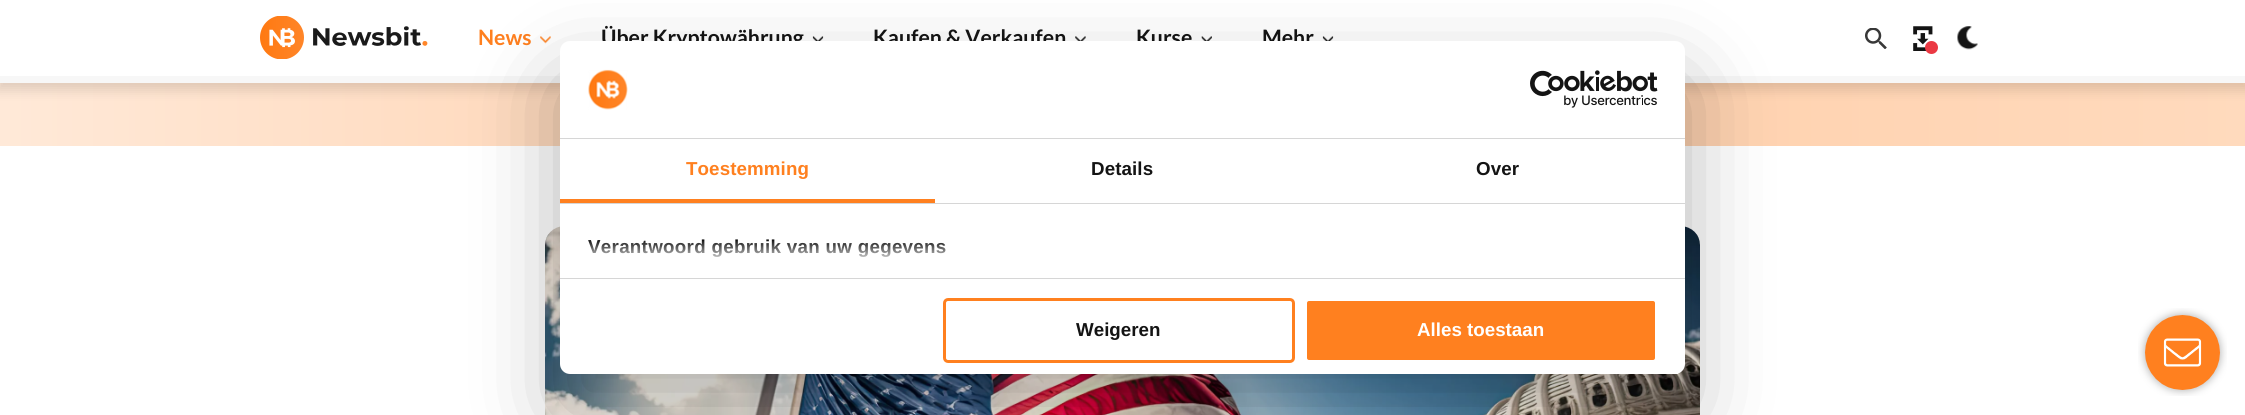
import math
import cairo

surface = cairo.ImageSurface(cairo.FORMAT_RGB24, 2245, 415)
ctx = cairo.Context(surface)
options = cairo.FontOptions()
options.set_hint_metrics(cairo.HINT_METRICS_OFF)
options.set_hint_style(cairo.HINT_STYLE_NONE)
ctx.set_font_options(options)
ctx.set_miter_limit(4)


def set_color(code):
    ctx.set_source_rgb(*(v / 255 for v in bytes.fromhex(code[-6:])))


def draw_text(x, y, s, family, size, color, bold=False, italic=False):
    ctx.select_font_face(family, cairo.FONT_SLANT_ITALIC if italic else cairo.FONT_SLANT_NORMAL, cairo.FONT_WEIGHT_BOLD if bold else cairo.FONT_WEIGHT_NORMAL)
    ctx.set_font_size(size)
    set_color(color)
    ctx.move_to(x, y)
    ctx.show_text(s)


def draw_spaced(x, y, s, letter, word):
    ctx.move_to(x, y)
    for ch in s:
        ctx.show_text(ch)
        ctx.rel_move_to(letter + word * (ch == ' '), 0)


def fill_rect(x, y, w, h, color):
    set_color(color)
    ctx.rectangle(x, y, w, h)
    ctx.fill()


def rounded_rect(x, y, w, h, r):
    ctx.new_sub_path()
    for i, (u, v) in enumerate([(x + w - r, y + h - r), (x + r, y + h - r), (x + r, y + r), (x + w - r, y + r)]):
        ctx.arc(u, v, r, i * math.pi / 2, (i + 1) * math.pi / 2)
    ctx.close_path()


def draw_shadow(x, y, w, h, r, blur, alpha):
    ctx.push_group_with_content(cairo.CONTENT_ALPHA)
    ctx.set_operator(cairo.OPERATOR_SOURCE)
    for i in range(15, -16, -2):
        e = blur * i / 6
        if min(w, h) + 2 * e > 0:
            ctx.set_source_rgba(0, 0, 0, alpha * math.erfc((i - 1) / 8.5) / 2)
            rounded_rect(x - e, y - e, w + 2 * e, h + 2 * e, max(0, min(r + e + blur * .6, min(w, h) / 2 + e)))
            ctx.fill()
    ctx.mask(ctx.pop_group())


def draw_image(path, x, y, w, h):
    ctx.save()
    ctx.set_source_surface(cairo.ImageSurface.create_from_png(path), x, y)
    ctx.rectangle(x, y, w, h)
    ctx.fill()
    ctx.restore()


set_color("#ffffff")
ctx.paint()
gradient = cairo.LinearGradient(0, 114, 2245, 114)
gradient.add_color_stop_rgba(0, 1, 0.914, 0.847, 1)
gradient.add_color_stop_rgba(0.5, 1, 0.792, 0.635, 1)
gradient.add_color_stop_rgba(1, 1, 0.855, 0.741, 1)
ctx.set_source(gradient)
ctx.rectangle(0, 83, 2245, 63)
ctx.fill()
set_color("#000000")
draw_shadow(-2, 3, 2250, 87, 0, 6, 0.13)
fill_rect(0, 0, 2245, 76, "#ffffff")
draw_image("assets/img1.png", 260, 16, 168, 43)
draw_text(478, 45, "News", "Lato", 21.25, "#ff801f", bold=True)
draw_image("assets/img2.png", 540, 36, 11, 8)
draw_text(601, 45, "Über Kryptowährung", "Lato", 21.25, "#141414", bold=True)
draw_image("assets/img3.png", 812, 36, 12, 5)
draw_text(873, 45, "Kaufen & Verkaufen", "Lato", 21.25, "#141414", bold=True)
draw_image("assets/img4.png", 1075, 36, 11, 5)
draw_text(1136, 45, "Kurse", "Lato", 21.25, "#141414", bold=True)
draw_image("assets/img5.png", 1201, 36, 11, 5)
draw_text(1262, 45, "Mehr", "Lato", 21.25, "#141414", bold=True)
draw_image("assets/img3.png", 1322, 36, 12, 5)
draw_image("assets/img6.png", 1865, 28, 22, 21)
draw_image("assets/img7.png", 1913, 26, 20, 25)
set_color("#eb3943")
ctx.arc(1931.5, 47.5, 6.5, 0, 2 * math.pi)
ctx.fill()
draw_image("assets/img8.png", 1957, 26, 21, 24)
fill_rect(0, 76, 2245, 7, "#f7f7f7")
draw_image("assets/img9.png", 545, 226, 1155, 189)
set_color("#000000")
draw_shadow(560, 81, 1125, 333, 10, 42.5, 0.3)
set_color("#ffffff")
rounded_rect(560, 41, 1125, 333, 10)
ctx.fill()
fill_rect(560, 138, 1125, 1, "#d6d6d6")
draw_image("assets/img10.png", 588, 69, 40, 41)
draw_image("assets/img11.png", 1530, 70, 128, 38)
fill_rect(560, 203, 1125, 1, "#d6d6d6")
fill_rect(560, 199, 375, 4, "#ff801f")
ctx.select_font_face("Liberation Sans", cairo.FONT_SLANT_NORMAL, cairo.FONT_WEIGHT_BOLD)
ctx.set_font_size(18.75)
draw_spaced(686, 175, "Toestemming", 0.1, 0)
set_color("#141414")
draw_spaced(1091, 175, "Details", 0.1, 0)
draw_spaced(1476, 175, "Over", 0.1, 0)
fill_rect(560, 278, 1125, 1, "#d6d6d6")
set_color("#141414")
draw_spaced(588, 253, "Verantwoord gebruik van uw gegevens", 0.3, 0)
gradient = cairo.LinearGradient(1110, 278, 1110, 240)
gradient.add_color_stop_rgba(0, 1, 1, 1, 1)
gradient.add_color_stop_rgba(0.5, 1, 1, 1, 0.8)
gradient.add_color_stop_rgba(1, 1, 1, 1, 0)
ctx.set_source(gradient)
ctx.rectangle(588, 241, 358, 16)
ctx.fill()
rounded_rect(944.5, 299.5, 349, 62, 3.5)
set_color("#ff801f")
ctx.set_line_width(3)
ctx.stroke()
draw_text(1076, 336, "Weigeren", "Liberation Sans", 18.75, "#141414", bold=True)
set_color("#ff801f")
rounded_rect(1305.5, 299.5, 351, 62, 3.5)
ctx.fill_preserve()
set_color("#ffffff")
ctx.stroke()
draw_text(1417, 336, "Alles toestaan", "Liberation Sans", 18.75, "#ffffff", bold=True)
fill_rect(1675, 373, 3, 1, "#ffffff")
draw_image("assets/img12.png", 2138, 308, 89, 88)
surface.write_to_png("output.png")
